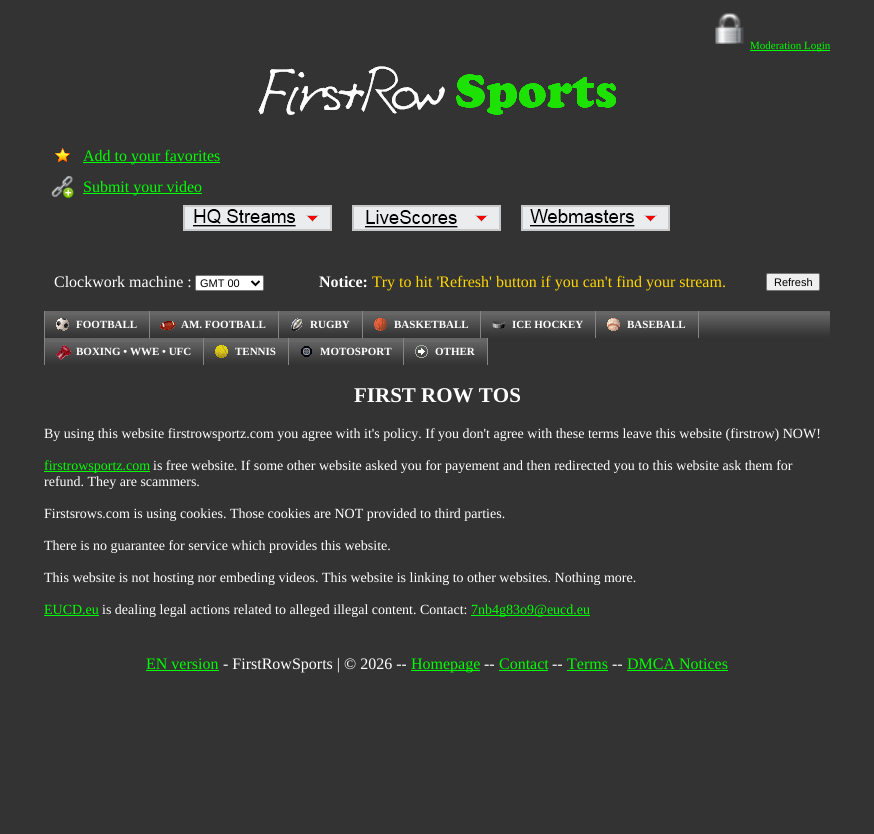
import math
import cairo

surface = cairo.ImageSurface(cairo.FORMAT_RGB24, 874, 834)
ctx = cairo.Context(surface)
options = cairo.FontOptions()
options.set_hint_metrics(cairo.HINT_METRICS_OFF)
options.set_hint_style(cairo.HINT_STYLE_NONE)
ctx.set_font_options(options)
ctx.set_miter_limit(4)


def set_color(code):
    ctx.set_source_rgb(*(v / 255 for v in bytes.fromhex(code[-6:])))


def draw_text(x, y, s, family, size, color, bold=False, italic=False):
    ctx.select_font_face(family, cairo.FONT_SLANT_ITALIC if italic else cairo.FONT_SLANT_NORMAL, cairo.FONT_WEIGHT_BOLD if bold else cairo.FONT_WEIGHT_NORMAL)
    ctx.set_font_size(size)
    set_color(color)
    ctx.move_to(x, y)
    ctx.show_text(s)


def fill_rect(x, y, w, h, color):
    set_color(color)
    ctx.rectangle(x, y, w, h)
    ctx.fill()


def rounded_rect(x, y, w, h, r):
    ctx.new_sub_path()
    for i, (u, v) in enumerate([(x + w - r, y + h - r), (x + r, y + h - r), (x + r, y + r), (x + w - r, y + r)]):
        ctx.arc(u, v, r, i * math.pi / 2, (i + 1) * math.pi / 2)
    ctx.close_path()


def draw_image(path, x, y, w, h):
    ctx.save()
    ctx.set_source_surface(cairo.ImageSurface.create_from_png(path), x, y)
    ctx.rectangle(x, y, w, h)
    ctx.fill()
    ctx.restore()


set_color("#333333")
ctx.paint()
draw_image("assets/img1.png", 715, 13, 29, 31)
fill_rect(750, 50, 80, 1, "#00ff00")
draw_text(750, 49, "Moderation Login", "Liberation Serif", 11, "#00ff00")
draw_image("assets/img2.png", 258, 66, 358, 49)
draw_image("assets/img3.png", 55, 148, 15, 14)
fill_rect(83, 162, 137, 1, "#00ff00")
draw_text(83, 161, "Add to your favorites", "Liberation Serif", 16, "#00ff00")
draw_image("assets/img4.png", 51, 176, 23, 22)
fill_rect(83, 193, 119, 1, "#00ff00")
draw_text(83, 192, "Submit your video", "Liberation Serif", 16, "#00ff00")
draw_image("assets/img5.png", 183, 205, 149, 26)
draw_image("assets/img6.png", 352, 205, 149, 26)
draw_image("assets/img7.png", 521, 205, 149, 26)
draw_text(54, 287, "Clockwork machine :", "Liberation Serif", 16, "#ffffff")
rounded_rect(195.5, 275.5, 68, 15, 1.5)
ctx.fill_preserve()
set_color("#767676")
ctx.set_line_width(1)
ctx.stroke()
ctx.new_path()
ctx.move_to(251.5, 281)
ctx.line_to(255.5, 285)
ctx.line_to(259.5, 281)
set_color("#000000")
ctx.set_line_width(2)
ctx.stroke()
draw_text(200, 287, "GMT 00", "Liberation Sans", 11, "#000000")
draw_text(319, 287, "Notice:", "Liberation Serif", 16, "#ffffff", bold=True)
draw_text(372, 287, "Try to hit 'Refresh' button if you can't find your stream.", "Liberation Serif", 16, "#ffd700")
set_color("#efefef")
rounded_rect(766.5, 273.5, 53, 17, 1.5)
ctx.fill_preserve()
set_color("#767676")
ctx.set_line_width(1)
ctx.stroke()
draw_text(774, 286, "Refresh", "Liberation Sans", 11, "#000000")
fill_rect(699, 311, 131, 4, "#666666")
draw_image("assets/img8.png", 699, 315, 131, 23)
fill_rect(45, 311, 104, 4, "#666666")
draw_image("assets/img9.png", 45, 315, 104, 23)
fill_rect(44, 311, 1, 54, "#858585")
draw_image("assets/img10.png", 56, 318, 13, 13)
draw_text(76, 328, "FOOTBALL", "Liberation Serif", 11, "#ffffff", bold=True)
fill_rect(150, 311, 128, 4, "#666666")
draw_image("assets/img11.png", 150, 315, 128, 23)
fill_rect(149, 311, 1, 27, "#858585")
draw_image("assets/img12.png", 160, 321, 16, 9)
draw_text(181, 328, "AM. FOOTBALL", "Liberation Serif", 11, "#ffffff", bold=True)
fill_rect(279, 311, 83, 4, "#666666")
draw_image("assets/img13.png", 279, 315, 83, 23)
fill_rect(278, 311, 1, 27, "#858585")
draw_image("assets/img14.png", 291, 318, 12, 13)
draw_text(310, 328, "RUGBY", "Liberation Serif", 11, "#ffffff", bold=True)
fill_rect(363, 311, 117, 4, "#666666")
draw_image("assets/img15.png", 363, 315, 117, 23)
fill_rect(362, 311, 1, 27, "#858585")
draw_image("assets/img16.png", 374, 318, 13, 13)
draw_text(394, 328, "BASKETBALL", "Liberation Serif", 11, "#ffffff", bold=True)
fill_rect(481, 311, 114, 4, "#666666")
draw_image("assets/img17.png", 481, 315, 114, 23)
fill_rect(480, 311, 1, 27, "#858585")
draw_image("assets/img18.png", 492, 320, 13, 9)
draw_text(512, 328, "ICE HOCKEY", "Liberation Serif", 11, "#ffffff", bold=True)
fill_rect(596, 311, 102, 4, "#666666")
draw_image("assets/img19.png", 596, 315, 102, 23)
fill_rect(698, 311, 1, 27, "#858585")
fill_rect(595, 311, 1, 27, "#858585")
draw_image("assets/img20.png", 607, 318, 13, 13)
draw_text(627, 328, "BASEBALL", "Liberation Serif", 11, "#ffffff", bold=True)
fill_rect(45, 338, 158, 4, "#666666")
draw_image("assets/img21.png", 45, 342, 158, 23)
draw_image("assets/img22.png", 56, 345, 15, 15)
draw_text(76, 355, "BOXING • WWE • UFC", "Liberation Serif", 11, "#ffffff", bold=True)
fill_rect(204, 338, 84, 4, "#666666")
draw_image("assets/img23.png", 204, 342, 84, 23)
fill_rect(203, 338, 1, 27, "#858585")
draw_image("assets/img24.png", 215, 345, 13, 13)
draw_text(235, 355, "TENNIS", "Liberation Serif", 11, "#ffffff", bold=True)
fill_rect(289, 338, 114, 4, "#666666")
draw_image("assets/img17.png", 289, 342, 114, 23)
fill_rect(288, 338, 1, 27, "#858585")
draw_image("assets/img25.png", 301, 346, 11, 11)
draw_text(320, 355, "MOTOSPORT", "Liberation Serif", 11, "#ffffff", bold=True)
fill_rect(404, 338, 83, 4, "#666666")
draw_image("assets/img13.png", 404, 342, 83, 23)
fill_rect(487, 338, 1, 27, "#858585")
fill_rect(403, 338, 1, 27, "#858585")
draw_image("assets/img26.png", 415, 345, 13, 13)
draw_text(435, 355, "OTHER", "Liberation Serif", 11, "#ffffff", bold=True)
draw_text(354, 402, "FIRST ROW TOS", "Liberation Serif", 21, "#ffffff", bold=True)
draw_text(44, 438, "By using this website firstrowsportz.com you agree with it's policy. If you don't agree with these terms leave this website (firstrow) NOW!", "Liberation Serif", 14, "#ffffff")
fill_rect(44, 471, 106, 1, "#00ff00")
draw_text(44, 470, "firstrowsportz.com", "Liberation Serif", 14, "#00ff00")
draw_text(153, 470, "is free website. If some other website asked you for payement and then redirected you to this website ask them for", "Liberation Serif", 14, "#ffffff")
draw_text(44, 486, "refund. They are scammers.", "Liberation Serif", 14, "#ffffff")
draw_text(44, 518, "Firstsrows.com is using cookies. Those cookies are NOT provided to third parties.", "Liberation Serif", 14, "#ffffff")
draw_text(44, 550, "There is no guarantee for service which provides this website.", "Liberation Serif", 14, "#ffffff")
draw_text(44, 582, "This website is not hosting nor embeding videos. This website is linking to other websites. Nothing more.", "Liberation Serif", 14, "#ffffff")
draw_text(44, 614, "EUCD.eu", "Liberation Serif", 14, "#00ff00")
fill_rect(44, 615, 55, 1, "#00ff00")
draw_text(102, 614, "is dealing legal actions related to alleged illegal content. Contact:", "Liberation Serif", 14, "#ffffff")
fill_rect(471, 615, 119, 1, "#00ff00")
draw_text(471, 614, "7nb4g83o9@eucd.eu", "Liberation Serif", 14, "#00ff00")
draw_text(146, 669, "EN version", "Liberation Serif", 16, "#00ff00")
fill_rect(146, 670, 73, 1, "#00ff00")
draw_text(223, 669, "- FirstRowSports | © 2026 --", "Liberation Serif", 16, "#ffffff")
fill_rect(411, 670, 69, 1, "#00ff00")
draw_text(411, 669, "Homepage", "Liberation Serif", 16, "#00ff00")
draw_text(484, 669, "--", "Liberation Serif", 16, "#ffffff")
draw_text(499, 669, "Contact", "Liberation Serif", 16, "#00ff00")
fill_rect(499, 670, 49, 1, "#00ff00")
draw_text(552, 669, "--", "Liberation Serif", 16, "#ffffff")
draw_text(567, 669, "Terms", "Liberation Serif", 16, "#00ff00")
fill_rect(567, 670, 41, 1, "#00ff00")
draw_text(612, 669, "--", "Liberation Serif", 16, "#ffffff")
draw_text(627, 669, "DMCA Notices", "Liberation Serif", 16, "#00ff00")
fill_rect(627, 670, 101, 1, "#00ff00")
surface.write_to_png("output.png")
